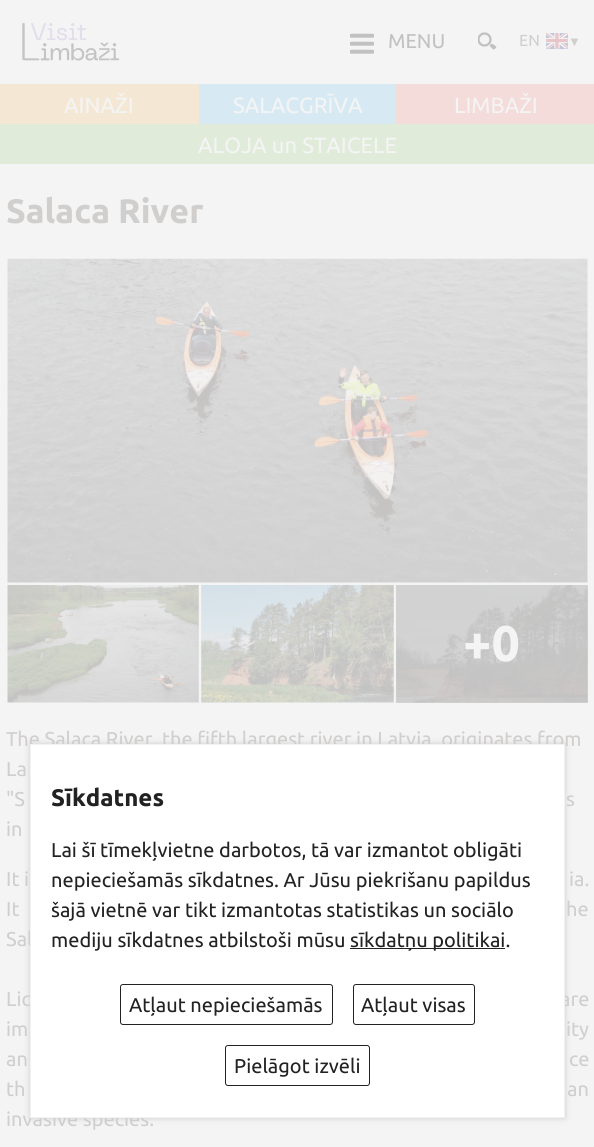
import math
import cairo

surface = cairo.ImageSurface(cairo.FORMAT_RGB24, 594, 1147)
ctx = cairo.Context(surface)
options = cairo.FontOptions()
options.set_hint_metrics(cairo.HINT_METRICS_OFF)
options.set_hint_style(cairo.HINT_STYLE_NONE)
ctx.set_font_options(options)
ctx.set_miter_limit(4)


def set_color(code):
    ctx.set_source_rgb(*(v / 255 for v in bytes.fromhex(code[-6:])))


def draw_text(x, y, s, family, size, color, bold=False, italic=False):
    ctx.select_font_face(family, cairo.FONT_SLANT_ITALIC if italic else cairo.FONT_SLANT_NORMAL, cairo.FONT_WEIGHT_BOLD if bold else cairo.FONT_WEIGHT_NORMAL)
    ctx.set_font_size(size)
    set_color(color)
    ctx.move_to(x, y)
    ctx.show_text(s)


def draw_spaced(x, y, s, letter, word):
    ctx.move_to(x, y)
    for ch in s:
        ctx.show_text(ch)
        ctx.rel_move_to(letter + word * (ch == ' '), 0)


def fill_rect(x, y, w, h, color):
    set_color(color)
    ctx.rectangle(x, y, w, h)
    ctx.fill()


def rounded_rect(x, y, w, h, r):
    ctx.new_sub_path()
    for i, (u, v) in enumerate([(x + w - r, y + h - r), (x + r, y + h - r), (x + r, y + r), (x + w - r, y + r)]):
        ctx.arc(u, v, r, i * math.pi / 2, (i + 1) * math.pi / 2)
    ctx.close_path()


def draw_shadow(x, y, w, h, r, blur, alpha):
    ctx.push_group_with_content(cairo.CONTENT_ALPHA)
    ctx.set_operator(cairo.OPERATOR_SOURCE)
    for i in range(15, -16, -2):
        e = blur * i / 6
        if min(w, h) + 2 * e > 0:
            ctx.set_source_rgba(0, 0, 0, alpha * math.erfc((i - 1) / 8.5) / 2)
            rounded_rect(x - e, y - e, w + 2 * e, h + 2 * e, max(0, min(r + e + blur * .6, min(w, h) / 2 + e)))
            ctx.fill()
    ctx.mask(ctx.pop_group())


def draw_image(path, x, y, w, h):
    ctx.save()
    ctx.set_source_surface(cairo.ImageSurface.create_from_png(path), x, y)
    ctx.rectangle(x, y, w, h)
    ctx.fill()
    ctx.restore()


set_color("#f4f4f4")
ctx.paint()
fill_rect(396, 585, 192, 118, "#d5d5d5")
draw_image("assets/img1.png", 22, 23, 98, 38)
draw_image("assets/img2.png", 350, 33, 24, 21)
draw_text(388, 48, "MENU", "Ubuntu", 20, "#c1c1c1")
draw_image("assets/img3.png", 478, 32, 19, 18)
draw_text(519, 46, "EN", "Ubuntu", 16, "#d1cfce")
draw_image("assets/img4.png", 546, 33, 22, 16)
draw_text(568, 46, "▼", "Liberation Sans", 13, "#d1cfce")
fill_rect(0, 84, 199, 40, "#f4e8d5")
draw_text(64, 113, "AINAŽI", "Ubuntu", 22, "#f4f4f4")
fill_rect(199, 84, 197, 40, "#d7eaf4")
draw_text(233, 113, "SALACGRĪVA", "Ubuntu", 22, "#f4f4f4")
fill_rect(396, 84, 198, 40, "#f4dcda")
draw_text(454, 113, "LIMBAŽI", "Ubuntu", 22, "#f4f4f4")
fill_rect(0, 124, 594, 40, "#e0ecd9")
draw_text(198, 153, "ALOJA un STAICELE", "Ubuntu", 22, "#f4f4f4")
draw_text(6, 223, "Salaca River", "Ubuntu", 34, "#d1cfce", bold=True)
draw_image("assets/img5.png", 7, 258, 581, 325)
draw_image("assets/img6.png", 7, 585, 192, 118)
draw_image("assets/img7.png", 201, 585, 193, 118)
draw_image("assets/img8.png", 396, 585, 192, 118)
draw_text(463, 661, "+0", "Ubuntu", 50, "#f4f4f4", bold=True)
draw_text(6, 746, "The Salaca River, the fifth largest river in Latvia, originates from", "Ubuntu", 20, "#d1cfce")
draw_text(6, 776, "La", "Ubuntu", 20, "#d1cfce")
draw_text(6, 806, "\"S", "Ubuntu", 20, "#d1cfce")
draw_text(566, 806, "s", "Ubuntu", 20, "#d1cfce")
draw_text(6, 836, "in", "Ubuntu", 20, "#d1cfce")
draw_text(6, 886, "It i", "Ubuntu", 20, "#d1cfce")
draw_text(569, 886, "ia.", "Ubuntu", 20, "#d1cfce")
draw_spaced(6, 916, "It", 0, 4)
draw_spaced(566, 916, "he", 0, 4)
draw_text(6, 946, "Sal", "Ubuntu", 20, "#d1cfce")
draw_spaced(6, 1006, "Lic", 0, 5)
draw_spaced(560, 1006, "are", 0, 5)
draw_spaced(6, 1036, "im", 0, 5)
draw_spaced(566, 1036, "ity", 0, 5)
draw_spaced(6, 1066, "an", 0, 1)
draw_spaced(569, 1066, "ce", 0, 1)
draw_spaced(6, 1096, "th", 0, 8)
draw_spaced(567, 1096, "an", 0, 8)
draw_text(6, 1126, "invasive species.", "Ubuntu", 20, "#d1cfce")
set_color("#cccccc")
draw_shadow(30, 744, 535, 374, 0, 3, 1)
set_color("#ffffff")
ctx.rectangle(30.5, 744.5, 534, 373)
ctx.fill_preserve()
set_color("#f2f2f2")
ctx.set_line_width(1)
ctx.stroke()
draw_text(51, 806, "Sīkdatnes", "Ubuntu", 24, "#222222", bold=True)
draw_text(51, 857, "Lai šī tīmekļvietne darbotos, tā var izmantot obligāti", "Ubuntu", 20, "#222222")
draw_text(51, 887, "nepieciešamās sīkdatnes. Ar Jūsu piekrišanu papildus", "Ubuntu", 20, "#222222")
draw_text(51, 917, "šajā vietnē var tikt izmantotas statistikas un sociālo", "Ubuntu", 20, "#222222")
draw_text(51, 947, "mediju sīkdatnes atbilstoši mūsu", "Ubuntu", 20, "#222222")
fill_rect(350, 948, 155, 1, "#222222")
draw_text(350, 947, "sīkdatņu politikai.", "Ubuntu", 20, "#222222")
rounded_rect(120.5, 984.5, 212, 40, 2.5)
ctx.stroke()
draw_text(129, 1012, "Atļaut nepieciešamās", "Ubuntu", 20, "#222222")
rounded_rect(353.5, 984.5, 121, 40, 2.5)
ctx.stroke()
draw_text(361, 1012, "Atļaut visas", "Ubuntu", 20, "#222222")
rounded_rect(225.5, 1045.5, 144, 40, 2.5)
ctx.stroke()
draw_text(234, 1073, "Pielāgot izvēli", "Ubuntu", 20, "#222222")
surface.write_to_png("output.png")
